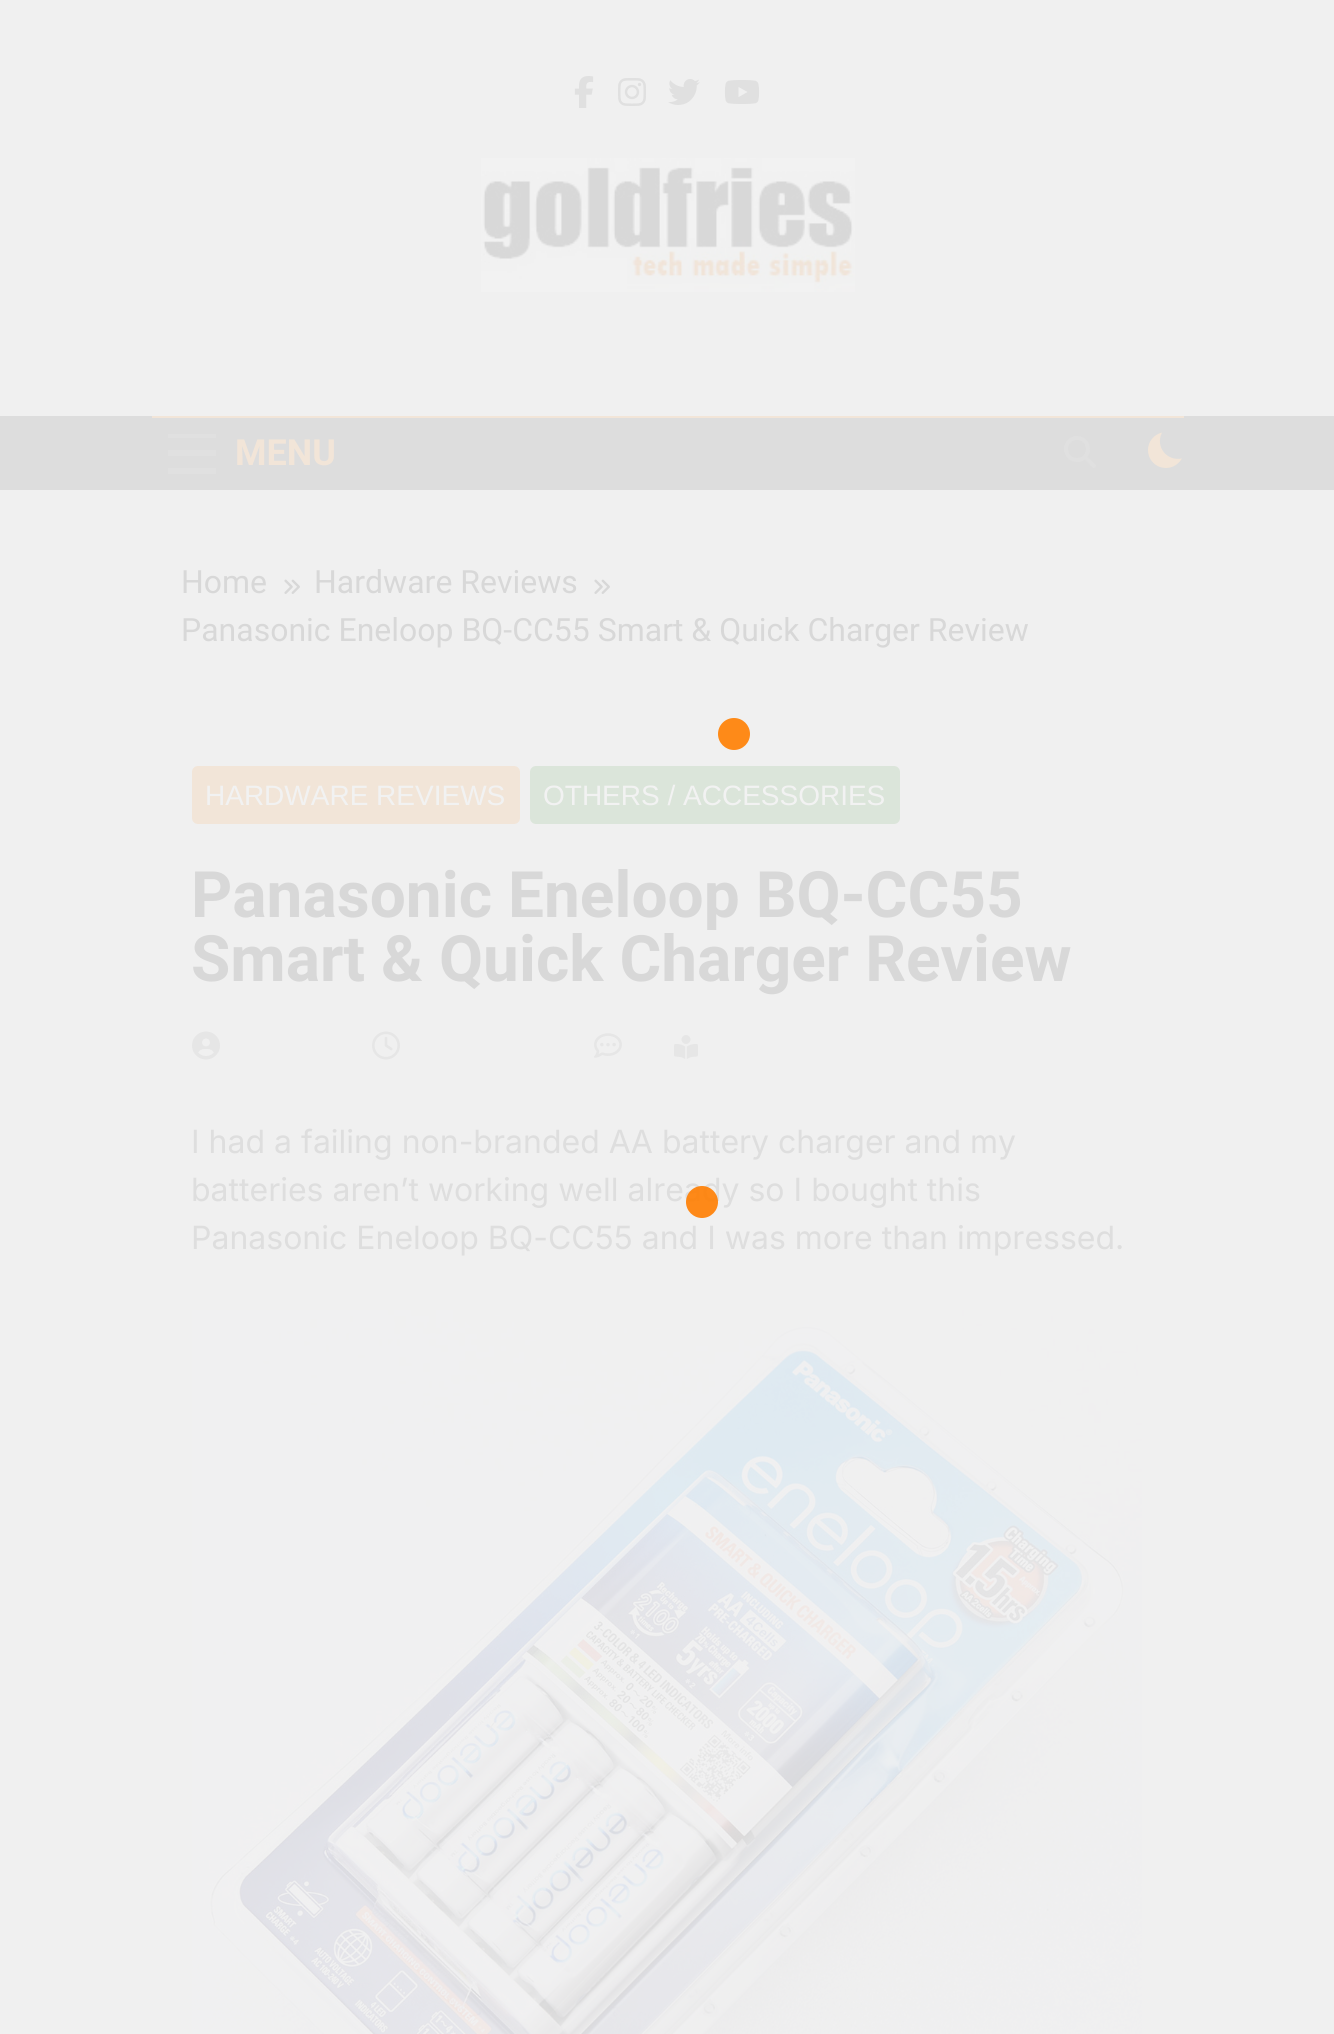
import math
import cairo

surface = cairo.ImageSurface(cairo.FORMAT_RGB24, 1334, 2034)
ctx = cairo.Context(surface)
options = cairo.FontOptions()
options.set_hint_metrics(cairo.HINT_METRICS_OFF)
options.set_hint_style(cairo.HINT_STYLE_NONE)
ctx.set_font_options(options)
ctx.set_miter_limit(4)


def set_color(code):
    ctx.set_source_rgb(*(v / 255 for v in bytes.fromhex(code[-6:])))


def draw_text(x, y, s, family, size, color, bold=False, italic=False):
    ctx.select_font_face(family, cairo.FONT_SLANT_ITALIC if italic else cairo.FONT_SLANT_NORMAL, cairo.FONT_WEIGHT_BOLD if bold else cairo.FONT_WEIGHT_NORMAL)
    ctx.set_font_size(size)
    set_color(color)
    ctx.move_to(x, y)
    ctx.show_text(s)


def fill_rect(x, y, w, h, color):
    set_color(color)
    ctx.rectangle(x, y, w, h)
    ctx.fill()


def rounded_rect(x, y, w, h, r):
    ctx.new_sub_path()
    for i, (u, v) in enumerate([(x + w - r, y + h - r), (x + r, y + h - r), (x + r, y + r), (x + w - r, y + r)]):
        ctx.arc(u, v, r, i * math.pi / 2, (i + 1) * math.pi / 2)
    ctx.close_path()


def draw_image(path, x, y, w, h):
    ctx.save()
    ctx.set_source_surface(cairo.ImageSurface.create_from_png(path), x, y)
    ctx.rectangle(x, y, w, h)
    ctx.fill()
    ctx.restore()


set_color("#f0f0f0")
ctx.paint()
draw_image("assets/img1.png", 574, 76, 20, 32)
draw_image("assets/img2.png", 618, 78, 28, 28)
draw_image("assets/img3.png", 668, 79, 32, 26)
draw_image("assets/img4.png", 724, 80, 36, 24)
draw_image("assets/img5.png", 481, 158, 374, 134)
fill_rect(0, 416, 1334, 74, "#dddddd")
fill_rect(152, 416, 1032, 2, "#f2e5d8")
fill_rect(168, 434, 48, 4, "#e0e0e0")
fill_rect(168, 450, 48, 6, "#e0e0e0")
fill_rect(168, 468, 48, 6, "#e0e0e0")
draw_text(235, 465, "MENU", "Roboto", 36, "#f2e5d8", bold=True)
draw_image("assets/img6.png", 1064, 436, 32, 32)
ctx.new_path()
ctx.move_to(1182, 458.5)
ctx.curve_to(1166.5, 461.5, 1155, 446.5, 1162, 432.5)
ctx.curve_to(1154, 434.5, 1148, 441.5, 1148, 450)
ctx.curve_to(1148, 460, 1156, 468, 1166, 468)
ctx.curve_to(1173, 468, 1178.5, 464, 1182, 458.5)
ctx.close_path()
ctx.fill()
draw_text(181, 593, "Home", "Roboto", 32, "#d8d8d8")
draw_image("assets/img7.png", 284, 579, 16, 15)
draw_text(314, 593, "Hardware Reviews", "Roboto", 32, "#d8d8d8")
draw_image("assets/img7.png", 594, 579, 16, 15)
draw_text(181, 641, "Panasonic Eneloop BQ-CC55 Smart & Quick Charger Review", "Roboto", 32, "#d8d8d8")
set_color("#f2e5d8")
rounded_rect(192, 766, 328, 58, 6)
ctx.fill()
draw_text(205, 805, "HARDWARE REVIEWS", "Liberation Sans", 28, "#f2f2f2")
set_color("#dbe5da")
rounded_rect(530, 766, 370, 58, 6)
ctx.fill()
draw_text(543, 805, "OTHERS / ACCESSORIES", "Liberation Sans", 28, "#f2f2f2")
draw_text(191, 917, "Panasonic Eneloop BQ-CC55", "Roboto", 64, "#d8d8d8", bold=True)
draw_text(191, 981, "Smart & Quick Charger Review", "Roboto", 64, "#d8d8d8", bold=True)
draw_image("assets/img8.png", 192, 1031, 28, 29)
draw_image("assets/img9.png", 372, 1031, 28, 29)
draw_image("assets/img10.png", 594, 1033, 28, 25)
draw_image("assets/img11.png", 674, 1035, 24, 24)
draw_text(191, 1153, "I had a failing non-branded AA battery charger and my", "Inter", 32, "#dedede")
draw_text(191, 1201, "batteries aren’t working well already so I bought this", "Inter", 32, "#dedede")
draw_text(191, 1249, "Panasonic Eneloop BQ-CC55 and I was more than impressed.", "Inter", 32, "#dedede")
draw_image("assets/img12.png", 192, 1310, 950, 724)
set_color("#fe8a18")
ctx.arc(734, 734, 16, 0, 2 * math.pi)
ctx.fill()
ctx.set_source_rgba(1, 0.494, 0, 0.9)
ctx.arc(702, 1202, 16, 0, 2 * math.pi)
ctx.fill()
surface.write_to_png("output.png")
